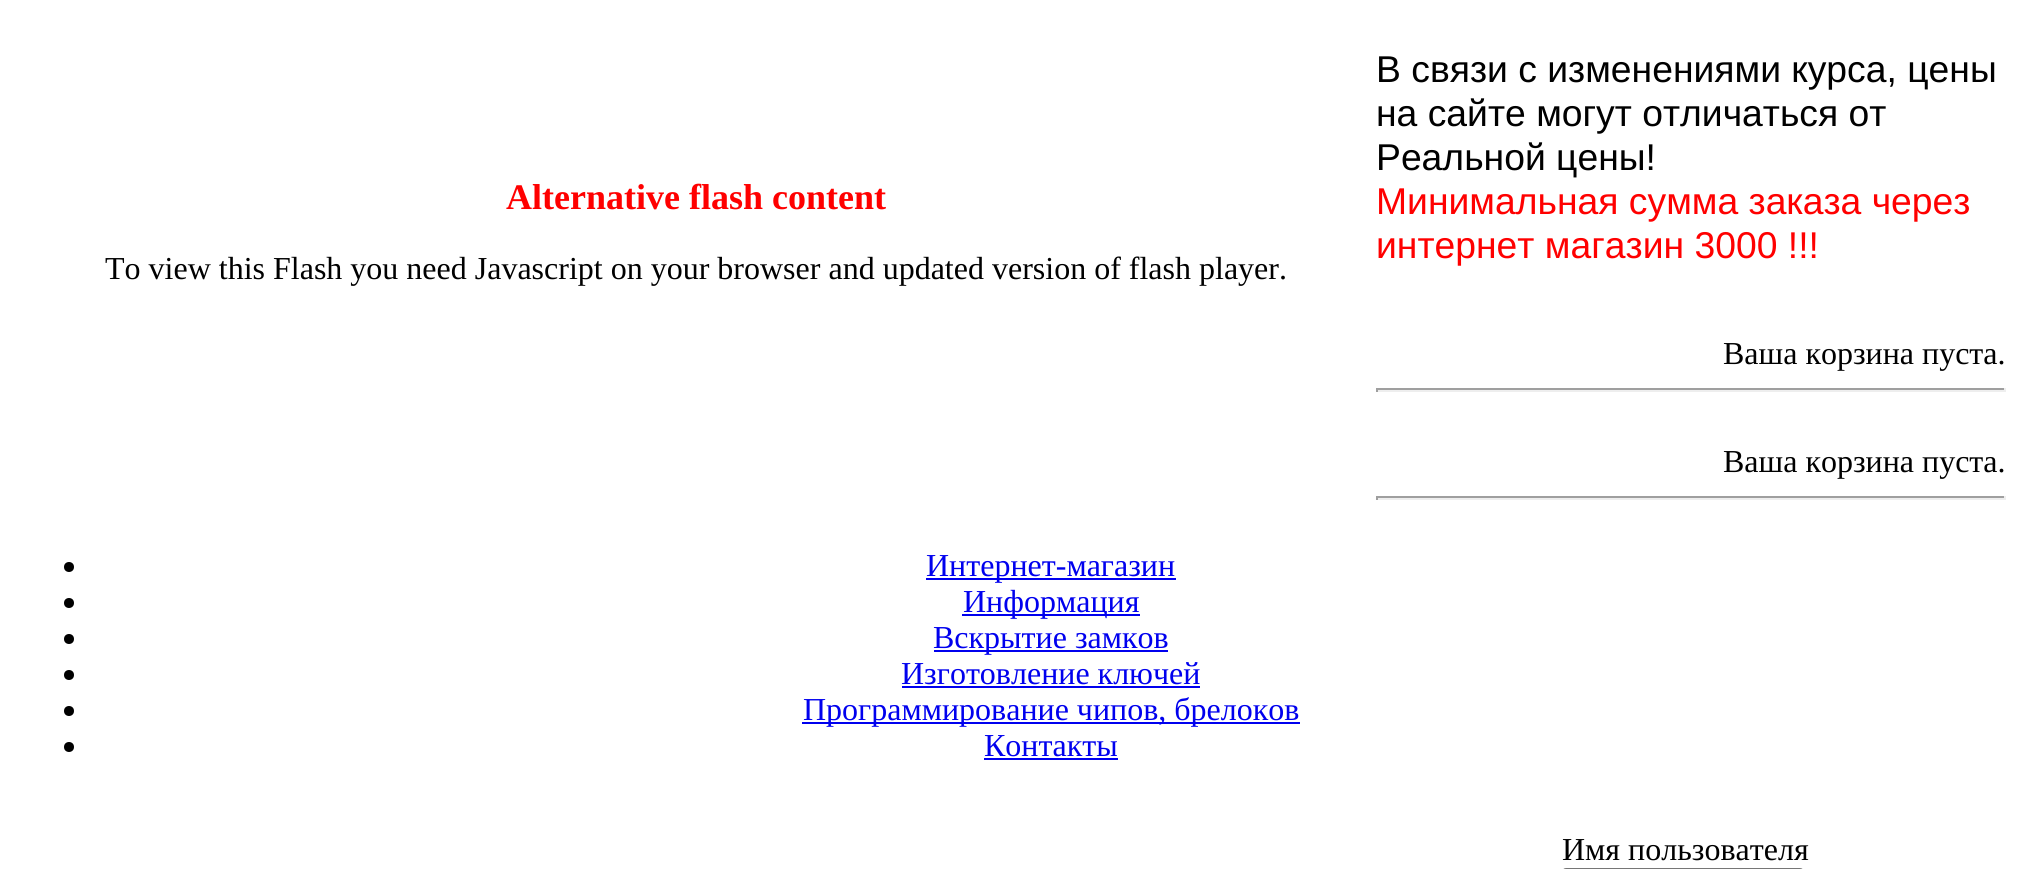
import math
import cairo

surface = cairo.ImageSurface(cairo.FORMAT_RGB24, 2022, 869)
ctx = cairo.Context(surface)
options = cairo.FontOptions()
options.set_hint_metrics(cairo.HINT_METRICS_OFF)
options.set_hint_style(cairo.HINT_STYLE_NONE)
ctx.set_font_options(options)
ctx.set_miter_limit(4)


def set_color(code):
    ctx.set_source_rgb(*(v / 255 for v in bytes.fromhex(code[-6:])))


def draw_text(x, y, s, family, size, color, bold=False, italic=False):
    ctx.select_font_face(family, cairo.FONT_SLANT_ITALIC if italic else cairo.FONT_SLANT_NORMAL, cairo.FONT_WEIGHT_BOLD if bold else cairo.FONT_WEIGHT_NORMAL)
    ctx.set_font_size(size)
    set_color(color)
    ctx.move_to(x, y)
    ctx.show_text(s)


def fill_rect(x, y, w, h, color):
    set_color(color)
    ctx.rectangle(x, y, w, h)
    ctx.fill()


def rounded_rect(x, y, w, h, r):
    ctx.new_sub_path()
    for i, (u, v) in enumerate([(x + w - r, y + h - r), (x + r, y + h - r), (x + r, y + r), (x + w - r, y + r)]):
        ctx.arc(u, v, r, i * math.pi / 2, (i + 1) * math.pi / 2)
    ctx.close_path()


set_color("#ffffff")
ctx.paint()
draw_text(506, 209, "Alternative flash content", "Liberation Serif", 36, "#ff0000", bold=True)
draw_text(105, 279, "To view this Flash you need Javascript on your browser and updated version of flash player.", "Liberation Serif", 32, "#000000")
draw_text(1376, 82, "В связи с изменениями курса, цены", "Liberation Sans", 37.3, "#000000")
draw_text(1376, 126, "на сайте могут отличаться от", "Liberation Sans", 37.3, "#000000")
draw_text(1376, 170, "Реальной цены!", "Liberation Sans", 37.3, "#000000")
draw_text(1376, 214, "Минимальная сумма заказа через", "Liberation Sans", 37.3, "#ff0000")
draw_text(1376, 258, "интернет магазин 3000 !!!", "Liberation Sans", 37.3, "#ff0000")
draw_text(1723, 364, "Ваша корзина пуста.", "Liberation Serif", 32, "#000000")
fill_rect(1376, 388, 630, 2, "#9f9f9f")
fill_rect(2004, 388, 2, 4, "#eeeeee")
fill_rect(1376, 390, 630, 2, "#eeeeee")
fill_rect(1376, 388, 2, 4, "#9f9f9f")
draw_text(1723, 472, "Ваша корзина пуста.", "Liberation Serif", 32, "#000000")
fill_rect(1376, 496, 630, 2, "#9f9f9f")
fill_rect(2004, 496, 2, 4, "#eeeeee")
fill_rect(1376, 498, 630, 2, "#eeeeee")
fill_rect(1376, 496, 2, 4, "#9f9f9f")
set_color("#000000")
ctx.new_path()
ctx.arc(69, 567, 5, 0, 2 * math.pi)
ctx.fill()
fill_rect(926, 578, 250, 2, "#0000ee")
draw_text(926, 576, "Интернет-магазин", "Liberation Serif", 32, "#0000ee")
set_color("#000000")
ctx.new_path()
ctx.arc(69, 603, 5, 0, 2 * math.pi)
ctx.fill()
fill_rect(962, 614, 178, 2, "#0000ee")
draw_text(963, 612, "Информация", "Liberation Serif", 32, "#0000ee")
set_color("#000000")
ctx.new_path()
ctx.arc(69, 639, 5, 0, 2 * math.pi)
ctx.fill()
fill_rect(934, 650, 234, 2, "#0000ee")
draw_text(933, 648, "Вскрытие замков", "Liberation Serif", 32, "#0000ee")
set_color("#000000")
ctx.new_path()
ctx.arc(69, 675, 5, 0, 2 * math.pi)
ctx.fill()
draw_text(901, 684, "Изготовление ключей", "Liberation Serif", 32, "#0000ee")
fill_rect(902, 686, 298, 2, "#0000ee")
set_color("#000000")
ctx.new_path()
ctx.arc(69, 711, 5, 0, 2 * math.pi)
ctx.fill()
fill_rect(802, 722, 498, 2, "#0000ee")
draw_text(803, 720, "Программирование чипов, брелоков", "Liberation Serif", 32, "#0000ee")
set_color("#000000")
ctx.new_path()
ctx.arc(69, 747, 5, 0, 2 * math.pi)
ctx.fill()
draw_text(984, 756, "Контакты", "Liberation Serif", 32, "#0000ee")
fill_rect(984, 758, 134, 2, "#0000ee")
draw_text(1562, 860, "Имя пользователя", "Liberation Serif", 32, "#000000")
rounded_rect(1563, 869, 240, 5, 3)
set_color("#767676")
ctx.stroke()
surface.write_to_png("output.png")
